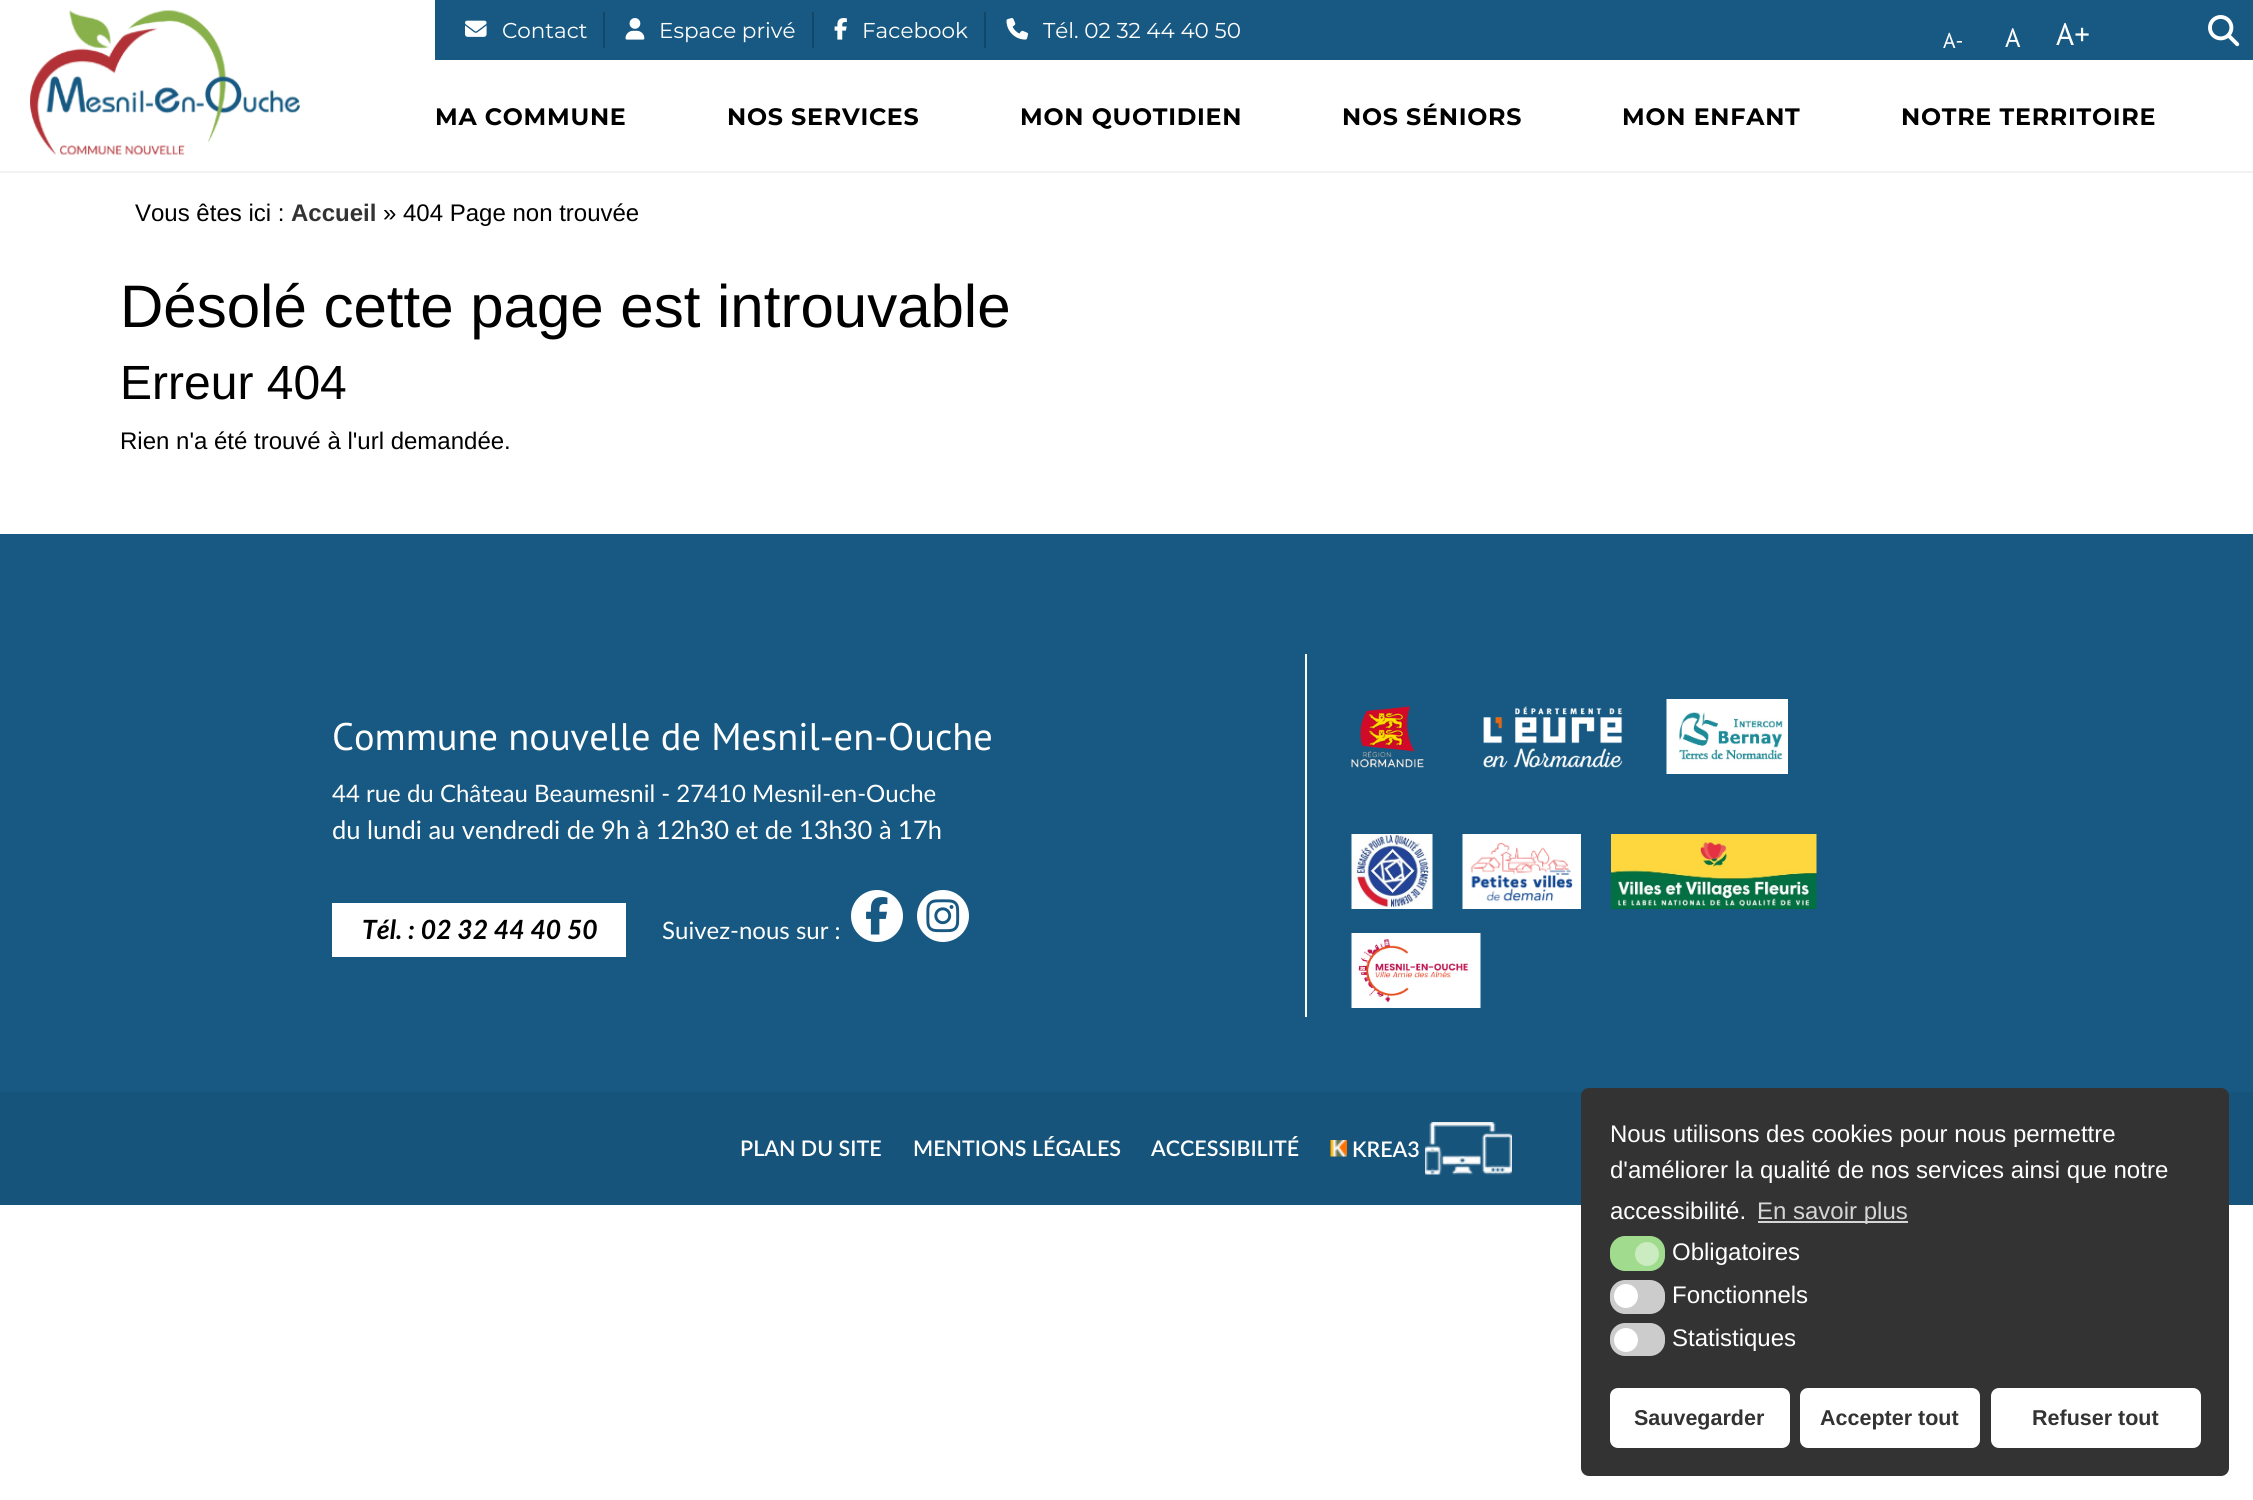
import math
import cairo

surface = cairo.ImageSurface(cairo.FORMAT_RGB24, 2253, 1500)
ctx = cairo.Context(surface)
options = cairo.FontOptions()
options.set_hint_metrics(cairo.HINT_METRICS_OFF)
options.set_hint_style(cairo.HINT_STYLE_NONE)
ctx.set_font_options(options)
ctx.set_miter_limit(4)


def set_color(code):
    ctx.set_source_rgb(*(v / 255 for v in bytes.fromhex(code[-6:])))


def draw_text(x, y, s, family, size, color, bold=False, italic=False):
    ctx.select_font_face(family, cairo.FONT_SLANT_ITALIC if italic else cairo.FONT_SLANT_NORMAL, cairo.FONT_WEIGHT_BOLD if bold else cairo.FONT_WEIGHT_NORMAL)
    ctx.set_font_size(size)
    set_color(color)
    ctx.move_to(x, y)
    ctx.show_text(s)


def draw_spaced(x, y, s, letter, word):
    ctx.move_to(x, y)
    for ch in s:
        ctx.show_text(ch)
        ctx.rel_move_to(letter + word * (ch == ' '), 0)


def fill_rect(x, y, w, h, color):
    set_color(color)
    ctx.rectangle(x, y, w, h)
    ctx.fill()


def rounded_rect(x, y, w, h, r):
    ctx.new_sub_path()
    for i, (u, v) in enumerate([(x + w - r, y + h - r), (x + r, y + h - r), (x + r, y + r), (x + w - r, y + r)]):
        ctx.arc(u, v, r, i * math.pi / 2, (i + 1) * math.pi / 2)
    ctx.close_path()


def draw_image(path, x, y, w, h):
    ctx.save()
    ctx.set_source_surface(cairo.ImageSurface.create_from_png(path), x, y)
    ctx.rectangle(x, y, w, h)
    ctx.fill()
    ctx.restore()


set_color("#ffffff")
ctx.paint()
fill_rect(0, 171, 2253, 2, "#f2f2f2")
draw_image("assets/img1.png", 30, 10, 270, 145)
fill_rect(435, 0, 1818, 60, "#175982")
fill_rect(603, 12, 2, 36, "#124768")
draw_image("assets/img2.png", 465, 20, 22, 17)
draw_text(502, 38, "Contact", "Montserrat", 21.5, "#ffffff")
fill_rect(812, 12, 2, 36, "#124768")
draw_image("assets/img3.png", 625, 18, 20, 22)
draw_text(659, 38, "Espace privé", "Montserrat", 21.5, "#ffffff")
fill_rect(984, 12, 2, 36, "#124768")
draw_image("assets/img4.png", 834, 18, 13, 22)
draw_text(862, 38, "Facebook", "Montserrat", 21.5, "#ffffff")
draw_image("assets/img5.png", 1006, 18, 23, 22)
draw_text(1043, 38, "Tél. 02 32 44 40 50", "Montserrat", 21.5, "#ffffff")
draw_text(1943, 48, "A-", "PT Sans", 21.5, "#ffffff")
draw_text(2005, 47, "A", "PT Sans", 26.5, "#ffffff")
draw_text(2056, 45, "A+", "PT Sans", 31, "#ffffff")
draw_image("assets/img6.png", 2208, 15, 32, 32)
ctx.select_font_face("Montserrat", cairo.FONT_SLANT_NORMAL, cairo.FONT_WEIGHT_BOLD)
ctx.set_font_size(23.75)
set_color("#000000")
draw_spaced(435, 125, "MA COMMUNE", 0.75, 0)
draw_spaced(727, 125, "NOS SERVICES", 0.75, 0)
draw_spaced(1020, 125, "MON QUOTIDIEN", 0.75, 0)
draw_spaced(1342, 125, "NOS SÉNIORS", 0.75, 0)
draw_spaced(1622, 125, "MON ENFANT", 0.75, 0)
draw_spaced(1901, 125, "NOTRE TERRITOIRE", 0.75, 0)
draw_text(135, 221, "Vous êtes ici :", "Liberation Sans", 24, "#000000")
draw_text(291, 221, "Accueil", "Liberation Sans", 24, "#333333", bold=True)
draw_text(383, 221, "» 404 Page non trouvée", "Liberation Sans", 24, "#000000")
draw_text(120, 327, "Désolé cette page est introuvable", "Liberation Sans", 60, "#000000")
draw_text(120, 399, "Erreur 404", "Liberation Sans", 48, "#000000")
draw_text(120, 449, "Rien n'a été trouvé à l'url demandée.", "Liberation Sans", 24, "#000000")
fill_rect(0, 534, 2253, 558, "#175982")
fill_rect(1305, 654, 2, 363, "#ffffff")
draw_text(332, 750, "Commune nouvelle de Mesnil-en-Ouche", "PT Sans", 38.4, "#ffffff")
draw_text(332, 802, "44 rue du Château Beaumesnil - 27410 Mesnil-en-Ouche", "Lato", 24, "#ffffff")
draw_text(332, 839, "du lundi au vendredi de 9h à 12h30 et de 13h30 à 17h", "Lato", 25.5, "#ffffff")
fill_rect(332, 903, 294, 54, "#ffffff")
draw_text(362, 939, "Tél. : 02 32 44 40 50", "Lato", 26.5, "#000000", bold=True, italic=True)
draw_text(662, 939, "Suivez-nous sur :", "Lato", 24, "#ffffff")
ctx.new_path()
ctx.arc(877, 916, 26, 0, 2 * math.pi)
ctx.fill()
draw_image("assets/img7.png", 866, 897, 22, 38)
ctx.arc(943, 916, 26, 0, 2 * math.pi)
ctx.fill()
draw_image("assets/img8.png", 926, 899, 34, 34)
draw_image("assets/img9.png", 1351, 706, 73, 62)
draw_image("assets/img10.png", 1483, 706, 140, 62)
draw_image("assets/img11.png", 1666, 699, 122, 75)
draw_image("assets/img12.png", 1351, 834, 82, 75)
draw_image("assets/img13.png", 1462, 834, 119, 75)
draw_image("assets/img14.png", 1611, 834, 206, 75)
draw_image("assets/img15.png", 1351, 933, 130, 75)
fill_rect(0, 1092, 2253, 113, "#16547c")
draw_text(740, 1156, "PLAN DU SITE", "Lato SemiBold", 21.5, "#ffffff")
draw_text(913, 1156, "MENTIONS LÉGALES", "Lato SemiBold", 21.5, "#ffffff")
draw_text(1151, 1156, "ACCESSIBILITÉ", "Lato SemiBold", 21.5, "#ffffff")
draw_image("assets/img16.png", 1330, 1140, 17, 17)
draw_text(1352, 1157, "KREA3", "Lato SemiBold", 21.5, "#ffffff")
draw_image("assets/img17.png", 1425, 1122, 87, 53)
set_color("#333333")
rounded_rect(1581, 1088, 648, 388, 8)
ctx.fill()
draw_text(1610, 1142, "Nous utilisons des cookies pour nous permettre", "Liberation Sans", 24, "#ffffff")
draw_text(1610, 1178, "d'améliorer la qualité de nos services ainsi que notre", "Liberation Sans", 24, "#ffffff")
draw_text(1610, 1219, "accessibilité.", "Liberation Sans", 24, "#ffffff")
fill_rect(1758, 1221, 150, 2, "#d6d6d6")
draw_text(1757, 1219, "En savoir plus", "Liberation Sans", 24, "#d6d6d6")
set_color("#a0db8e")
rounded_rect(1610, 1236, 55, 35, 15)
ctx.fill()
set_color("#cbebc1")
ctx.arc(1647, 1254, 12, 0, 2 * math.pi)
ctx.fill()
draw_text(1672, 1260, "Obligatoires", "Liberation Sans", 24, "#ffffff")
set_color("#cccccc")
rounded_rect(1610, 1280, 55, 34, 15)
ctx.fill()
set_color("#ffffff")
ctx.arc(1626, 1296, 12, 0, 2 * math.pi)
ctx.fill()
draw_text(1672, 1303, "Fonctionnels", "Liberation Sans", 24, "#ffffff")
set_color("#cccccc")
rounded_rect(1610, 1323, 55, 33, 15)
ctx.fill()
set_color("#ffffff")
ctx.arc(1626, 1340, 12, 0, 2 * math.pi)
ctx.fill()
draw_text(1672, 1346, "Statistiques", "Liberation Sans", 24, "#ffffff")
rounded_rect(1610, 1388, 180, 60, 8)
ctx.fill()
draw_text(1634, 1425, "Sauvegarder", "Liberation Sans", 21.5, "#333333", bold=True)
set_color("#ffffff")
rounded_rect(1800, 1388, 180, 60, 8)
ctx.fill()
draw_text(1820, 1425, "Accepter tout", "Liberation Sans", 21.5, "#333333", bold=True)
set_color("#ffffff")
rounded_rect(1991, 1388, 210, 60, 8)
ctx.fill()
draw_text(2032, 1425, "Refuser tout", "Liberation Sans", 21.5, "#333333", bold=True)
surface.write_to_png("output.png")
